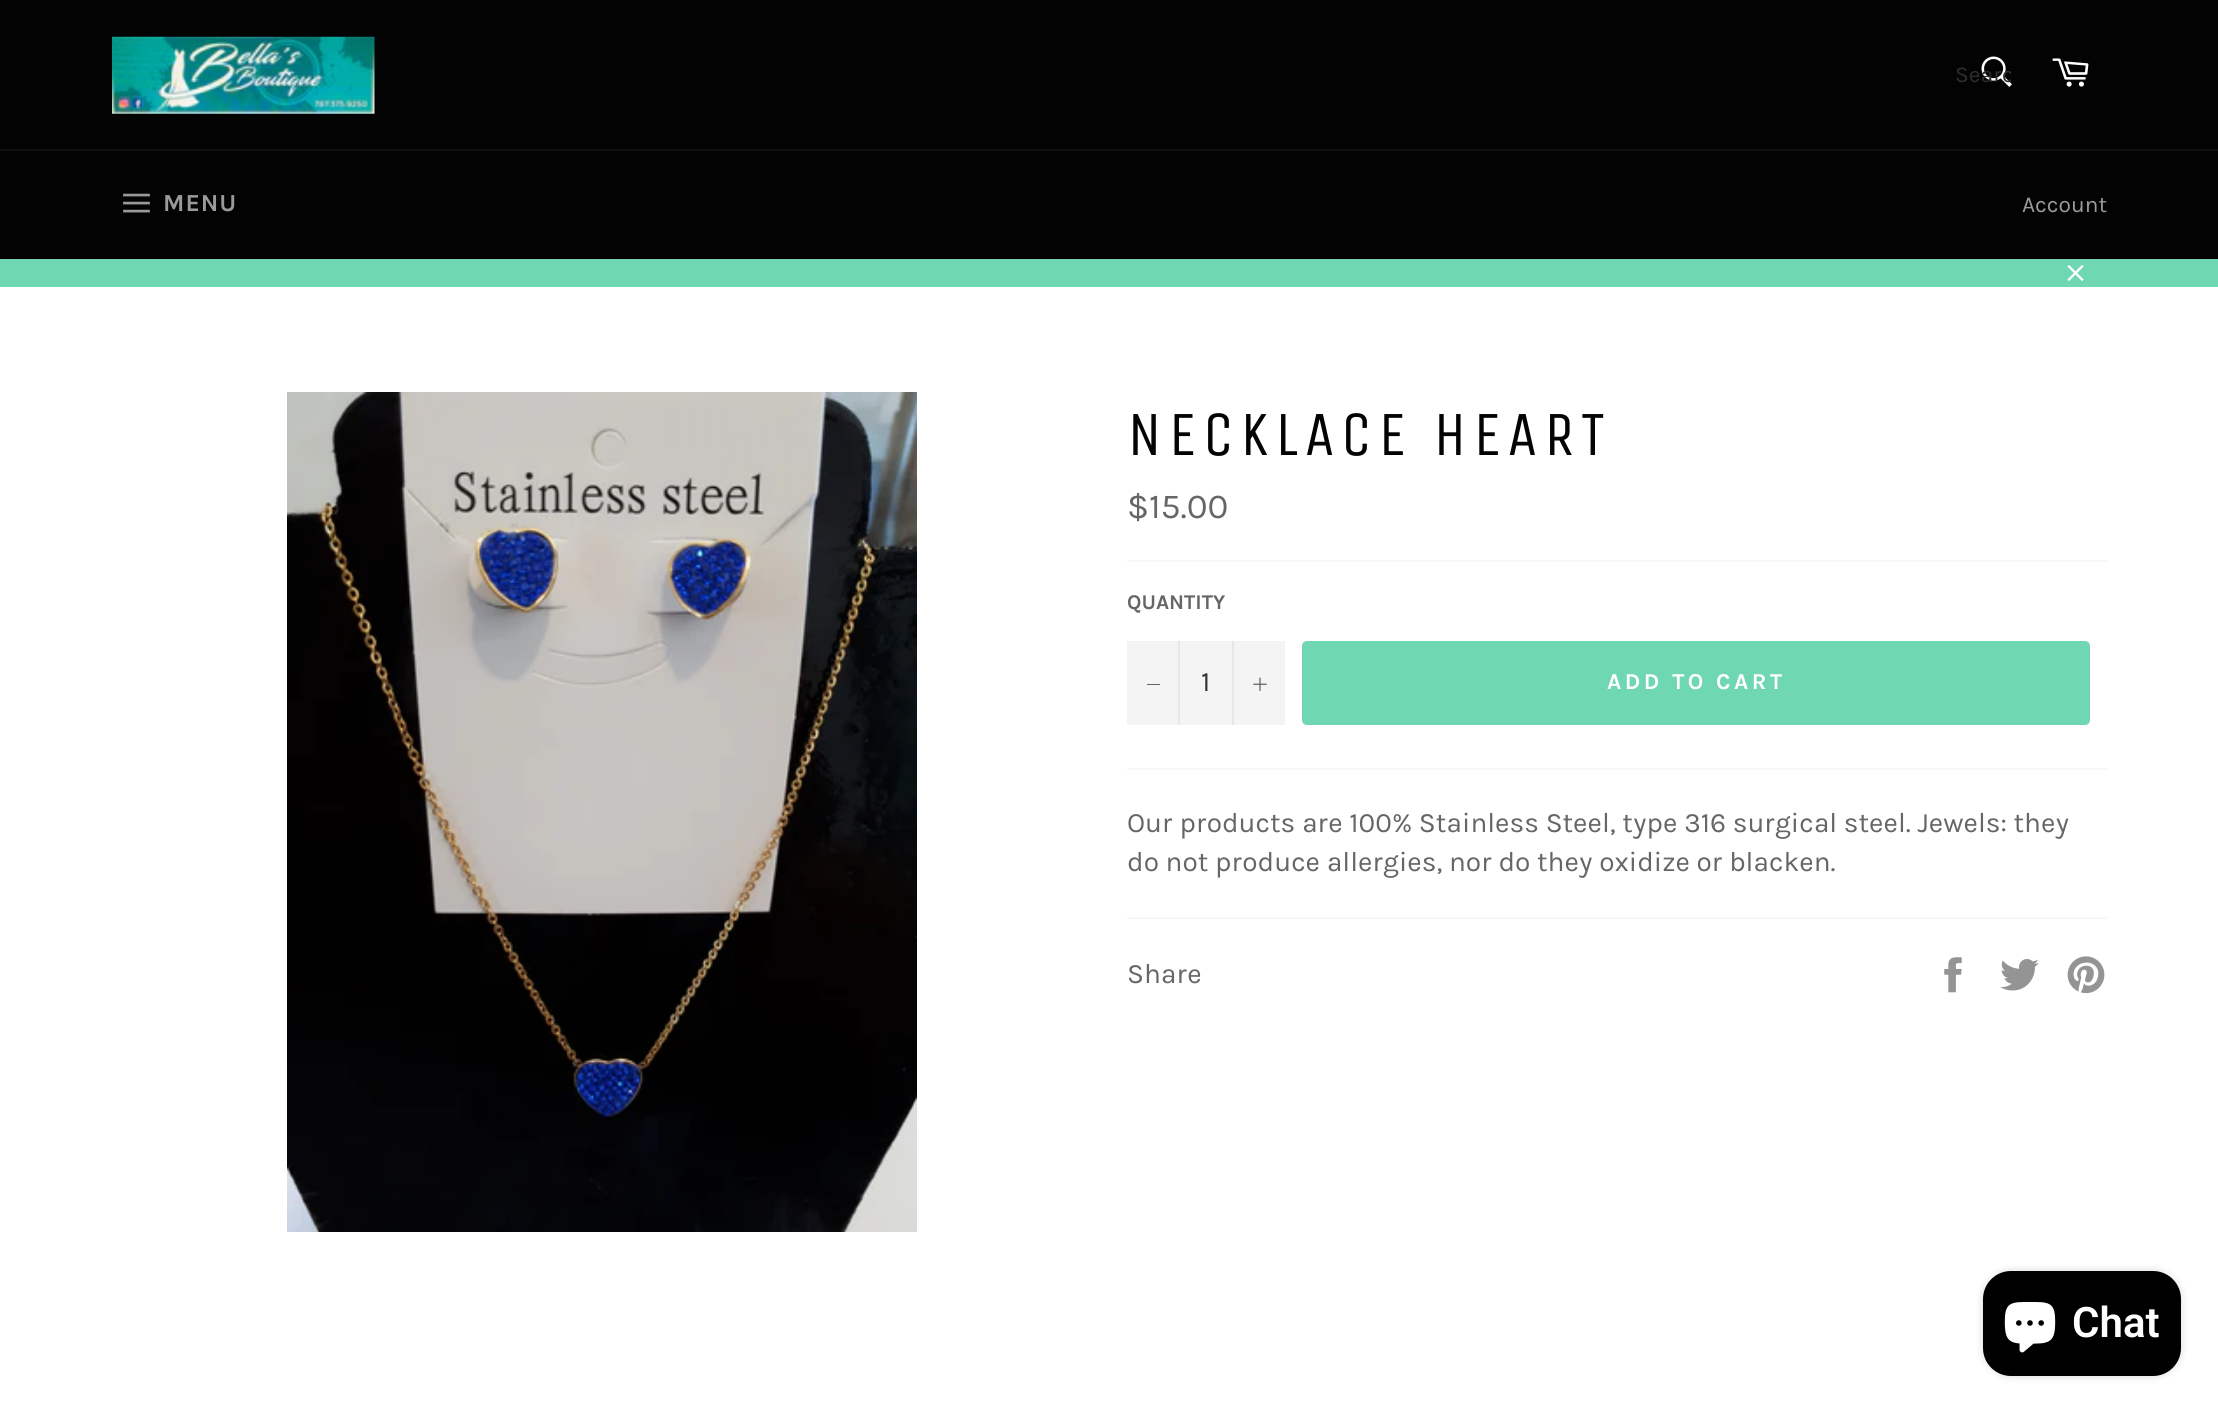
import math
import cairo

surface = cairo.ImageSurface(cairo.FORMAT_RGB24, 2218, 1412)
ctx = cairo.Context(surface)
options = cairo.FontOptions()
options.set_hint_metrics(cairo.HINT_METRICS_OFF)
options.set_hint_style(cairo.HINT_STYLE_NONE)
ctx.set_font_options(options)
ctx.set_miter_limit(4)


def set_color(code):
    ctx.set_source_rgb(*(v / 255 for v in bytes.fromhex(code[-6:])))


def draw_text(x, y, s, family, size, color, bold=False, italic=False):
    ctx.select_font_face(family, cairo.FONT_SLANT_ITALIC if italic else cairo.FONT_SLANT_NORMAL, cairo.FONT_WEIGHT_BOLD if bold else cairo.FONT_WEIGHT_NORMAL)
    ctx.set_font_size(size)
    set_color(color)
    ctx.move_to(x, y)
    ctx.show_text(s)


def draw_spaced(x, y, s, letter, word):
    ctx.move_to(x, y)
    for ch in s:
        ctx.show_text(ch)
        ctx.rel_move_to(letter + word * (ch == ' '), 0)


def fill_rect(x, y, w, h, color):
    set_color(color)
    ctx.rectangle(x, y, w, h)
    ctx.fill()


def rounded_rect(x, y, w, h, r):
    ctx.new_sub_path()
    for i, (u, v) in enumerate([(x + w - r, y + h - r), (x + r, y + h - r), (x + r, y + r), (x + w - r, y + r)]):
        ctx.arc(u, v, r, i * math.pi / 2, (i + 1) * math.pi / 2)
    ctx.close_path()


def draw_shadow(x, y, w, h, r, blur, alpha):
    ctx.push_group_with_content(cairo.CONTENT_ALPHA)
    ctx.set_operator(cairo.OPERATOR_SOURCE)
    for i in range(15, -16, -2):
        e = blur * i / 6
        if min(w, h) + 2 * e > 0:
            ctx.set_source_rgba(0, 0, 0, alpha * math.erfc((i - 1) / 8.5) / 2)
            rounded_rect(x - e, y - e, w + 2 * e, h + 2 * e, max(0, min(r + e + blur * .6, min(w, h) / 2 + e)))
            ctx.fill()
    ctx.mask(ctx.pop_group())


def draw_image(path, x, y, w, h):
    ctx.save()
    ctx.set_source_surface(cairo.ImageSurface.create_from_png(path), x, y)
    ctx.rectangle(x, y, w, h)
    ctx.fill()
    ctx.restore()


set_color("#030303")
ctx.paint()
draw_image("assets/img1.png", 112, 36, 263, 78)
draw_image("assets/img2.png", 1981, 56, 31, 31)
ctx.save()
ctx.rectangle(1955, 61, 56, 27)
ctx.clip()
draw_text(1955, 82, "Searc", "Karla", 22.75, "#2d2d2d")
ctx.restore()
draw_image("assets/img3.png", 2052, 58, 37, 29)
fill_rect(0, 149, 2218, 2, "#101010")
draw_image("assets/img4.png", 123, 193, 27, 20)
ctx.select_font_face("Karla", cairo.FONT_SLANT_NORMAL, cairo.FONT_WEIGHT_BOLD)
ctx.set_font_size(24.5)
set_color("#9a9a9a")
draw_spaced(163, 211, "MENU", 1, 0)
draw_text(2022, 212, "Account", "Karla", 22.75, "#9a9a9a")
fill_rect(0, 259, 2218, 28, "#70d7b3")
draw_image("assets/img5.png", 2067, 265, 17, 16)
fill_rect(0, 287, 2218, 1125, "#ffffff")
draw_image("assets/img6.png", 287, 392, 630, 840)
ctx.select_font_face("Unica One")
ctx.set_font_size(63)
set_color("#030303")
draw_spaced(1127, 455, "NECKLACE HEART", 6.25, 0)
draw_text(1127, 518, "$15.00", "Karla", 35, "#666666")
fill_rect(1127, 560, 980, 2, "#f7f7f7")
draw_text(1127, 609, "QUANTITY", "Karla", 21, "#666666", bold=True)
fill_rect(1127, 641, 158, 84, "#f4f4f4")
fill_rect(1178, 641, 2, 84, "#e7e7e7")
fill_rect(1147, 684, 13, 1, "#666666")
draw_text(1201, 691, "1", "Karla", 28, "#333333")
fill_rect(1232, 641, 2, 84, "#e7e7e7")
draw_image("assets/img7.png", 1253, 677, 14, 14)
set_color("#70d7b3")
rounded_rect(1302, 641, 788, 84, 5)
ctx.fill()
ctx.select_font_face("Karla", cairo.FONT_SLANT_NORMAL, cairo.FONT_WEIGHT_BOLD)
ctx.set_font_size(22.75)
set_color("#ffffff")
draw_spaced(1607, 689, "ADD TO CART", 3.5, 0)
fill_rect(1127, 768, 980, 2, "#f7f7f7")
draw_text(1127, 832, "Our products are 100% Stainless Steel, type 316 surgical steel. Jewels: they", "Karla", 28, "#666666")
draw_text(1127, 871, "do not produce allergies, nor do they oxidize or blacken.", "Karla", 28, "#666666")
fill_rect(1127, 917, 980, 2, "#f7f7f7")
draw_text(1127, 983, "Share", "Karla", 28, "#666666")
draw_image("assets/img8.png", 1944, 957, 18, 36)
draw_image("assets/img9.png", 2000, 959, 39, 32)
draw_image("assets/img10.png", 2067, 956, 38, 38)
set_color("#000000")
draw_shadow(1983, 1271, 198, 105, 28, 4.5, 0.15)
set_color("#000000")
rounded_rect(1983, 1271, 198, 105, 28)
ctx.fill()
draw_image("assets/img11.png", 2004, 1302, 52, 51)
draw_text(2072, 1337, "Chat", "Roboto SemiBold", 42, "#ffffff")
surface.write_to_png("output.png")
